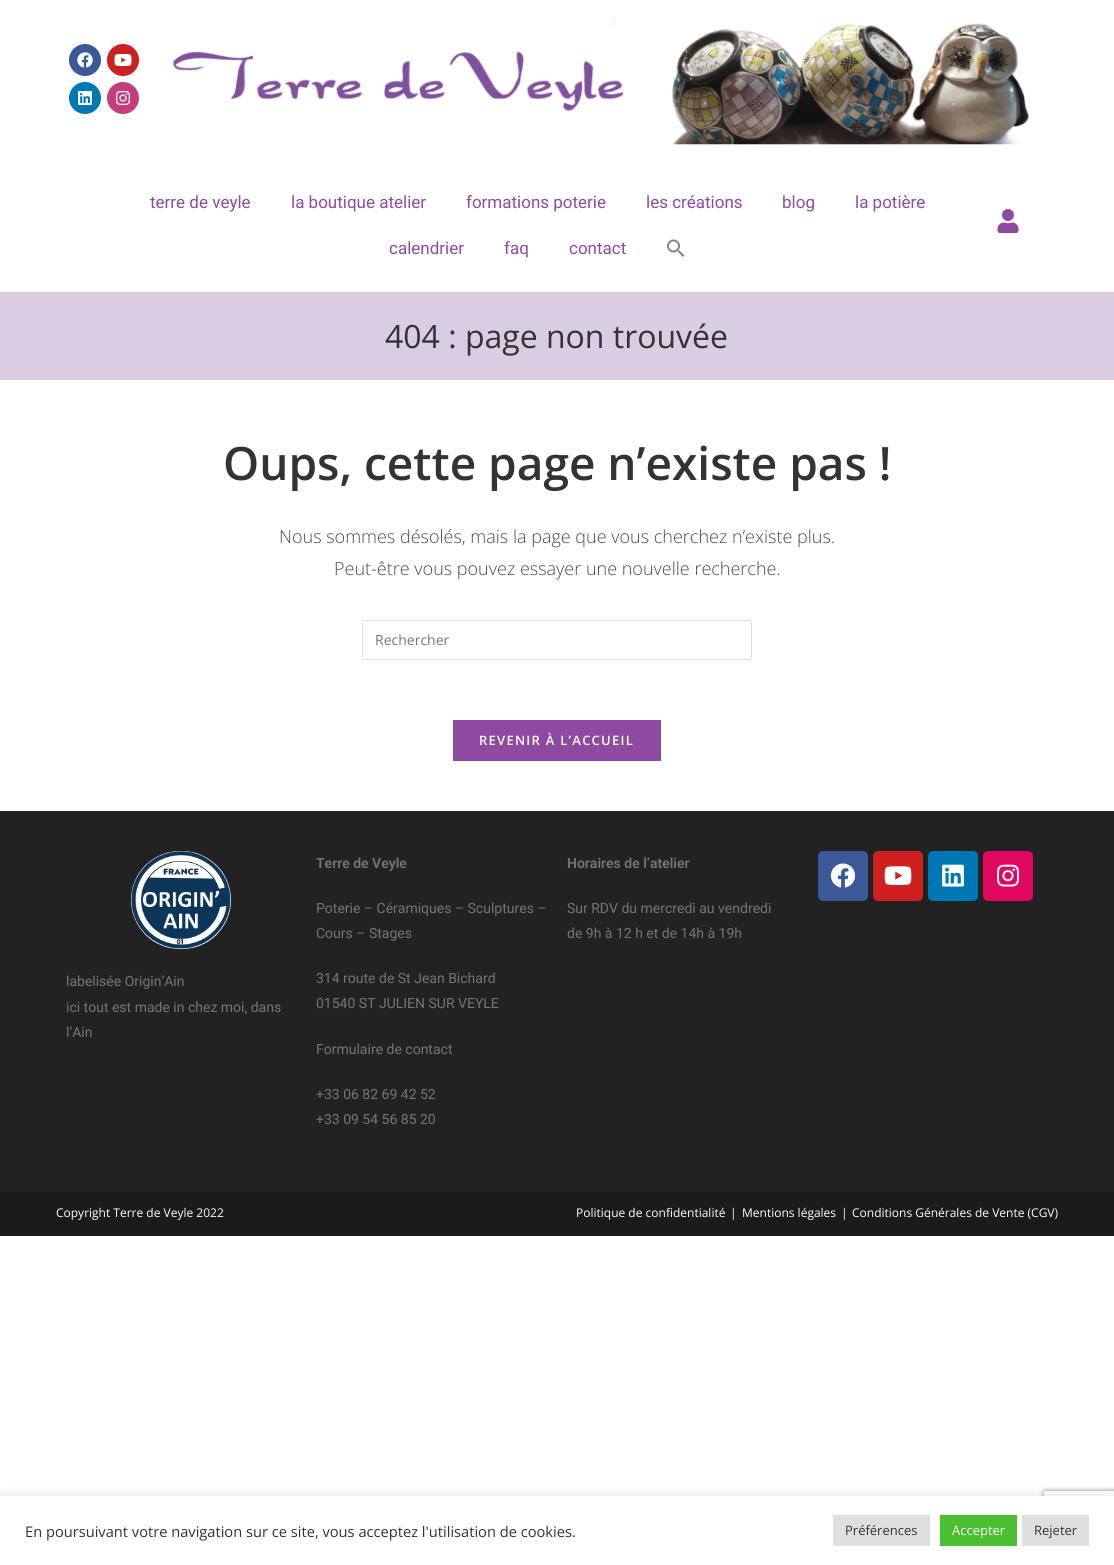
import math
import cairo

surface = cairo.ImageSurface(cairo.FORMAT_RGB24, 1114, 1565)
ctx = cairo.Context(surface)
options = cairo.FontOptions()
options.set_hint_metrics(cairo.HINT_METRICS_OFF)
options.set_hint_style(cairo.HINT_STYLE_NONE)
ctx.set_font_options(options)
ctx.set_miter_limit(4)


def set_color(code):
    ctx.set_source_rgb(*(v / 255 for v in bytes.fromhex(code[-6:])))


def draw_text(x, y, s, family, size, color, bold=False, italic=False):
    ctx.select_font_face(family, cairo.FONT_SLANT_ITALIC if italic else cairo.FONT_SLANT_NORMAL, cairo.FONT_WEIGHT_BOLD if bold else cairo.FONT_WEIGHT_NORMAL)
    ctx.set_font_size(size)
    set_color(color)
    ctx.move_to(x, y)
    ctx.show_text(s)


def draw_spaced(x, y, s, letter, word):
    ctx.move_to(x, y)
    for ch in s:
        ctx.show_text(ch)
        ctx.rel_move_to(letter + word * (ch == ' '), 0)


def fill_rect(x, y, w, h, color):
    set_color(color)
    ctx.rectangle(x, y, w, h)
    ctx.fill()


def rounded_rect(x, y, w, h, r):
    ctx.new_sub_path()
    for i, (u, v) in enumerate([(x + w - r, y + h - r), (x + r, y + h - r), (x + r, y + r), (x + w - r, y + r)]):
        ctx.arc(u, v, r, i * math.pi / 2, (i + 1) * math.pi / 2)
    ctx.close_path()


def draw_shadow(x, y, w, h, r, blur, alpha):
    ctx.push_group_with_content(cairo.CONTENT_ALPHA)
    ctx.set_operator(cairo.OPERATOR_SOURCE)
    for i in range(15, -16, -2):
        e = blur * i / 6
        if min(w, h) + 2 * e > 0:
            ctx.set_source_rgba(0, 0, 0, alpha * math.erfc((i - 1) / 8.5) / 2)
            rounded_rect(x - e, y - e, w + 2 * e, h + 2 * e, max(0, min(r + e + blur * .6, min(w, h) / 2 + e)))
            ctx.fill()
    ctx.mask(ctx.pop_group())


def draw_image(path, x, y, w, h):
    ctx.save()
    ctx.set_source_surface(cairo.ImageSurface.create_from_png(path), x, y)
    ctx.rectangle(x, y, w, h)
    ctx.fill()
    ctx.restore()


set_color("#ffffff")
ctx.paint()
fill_rect(0, 291, 1114, 1, "#f1f1f1")
set_color("#3b5998")
ctx.arc(85, 60, 16, 0, 2 * math.pi)
ctx.fill()
draw_image("assets/img1.png", 77, 52, 16, 16)
set_color("#cd201f")
ctx.arc(123, 60, 16, 0, 2 * math.pi)
ctx.fill()
draw_image("assets/img2.png", 114, 54, 18, 12)
set_color("#0077b5")
ctx.arc(85, 98, 16, 0, 2 * math.pi)
ctx.fill()
draw_image("assets/img3.png", 78, 91, 14, 14)
set_color("#c53e7c")
ctx.arc(123, 98, 16, 0, 2 * math.pi)
ctx.fill()
draw_image("assets/img4.png", 116, 91, 14, 14)
draw_image("assets/img5.png", 172, 18, 452, 94)
draw_image("assets/img6.png", 671, 23, 359, 122)
draw_text(150, 208, "terre de veyle", "Roboto", 17, "#8e4aa0")
draw_text(291, 208, "la boutique atelier", "Roboto", 17, "#8e4aa0")
draw_text(466, 208, "formations poterie", "Roboto", 17, "#8e4aa0")
draw_text(646, 208, "les créations", "Roboto", 17, "#8e4aa0")
draw_text(782, 208, "blog", "Roboto", 17, "#8e4aa0")
draw_text(855, 208, "la potière", "Roboto", 17, "#8e4aa0")
draw_text(389, 254, "calendrier", "Roboto", 17, "#8e4aa0")
draw_text(504, 254, "faq", "Roboto", 17, "#8e4aa0")
draw_text(569, 254, "contact", "Roboto", 17, "#8e4aa0")
draw_image("assets/img7.png", 667, 239, 18, 18)
draw_image("assets/img8.png", 997, 209, 22, 24)
fill_rect(0, 292, 1114, 88, "#dacce3")
draw_text(385, 348, "404 : page non trouvée", "Open Sans", 32, "#333333")
draw_text(223, 480, "Oups, cette page n’existe pas !", "Open Sans SemiBold", 46, "#333333")
draw_text(279, 543, "Nous sommes désolés, mais la page que vous cherchez n’existe plus.", "Open Sans Light", 18, "#4a4a4a")
draw_text(334, 575, "Peut-être vous pouvez essayer une nouvelle recherche.", "Open Sans Light", 18, "#4a4a4a")
rounded_rect(362.5, 620.5, 389, 39, 2.5)
set_color("#dddddd")
ctx.set_line_width(1)
ctx.stroke()
draw_text(375, 645, "Rechercher", "Open Sans", 14, "#757575")
fill_rect(453, 720, 208, 41, "#8e4aa0")
ctx.select_font_face("Open Sans SemiBold")
ctx.set_font_size(13)
set_color("#ffffff")
draw_spaced(479, 745, "REVENIR À L’ACCUEIL", 1.25, 0)
fill_rect(0, 811, 1114, 381, "#222222")
draw_text(316, 868, "Terre de Veyle", "Roboto SemiBold", 14, "#757575")
draw_text(316, 913, "Poterie – Céramiques – Sculptures –", "Roboto", 14, "#757575")
draw_text(316, 938, "Cours – Stages", "Roboto", 14, "#757575")
draw_text(316, 983, "314 route de St Jean Bichard", "Roboto", 14, "#757575")
draw_text(316, 1008, "01540 ST JULIEN SUR VEYLE", "Roboto", 14, "#757575")
draw_text(316, 1054, "Formulaire de contact", "Roboto", 14, "#757575")
draw_text(316, 1099, "+33 06 82 69 42 52", "Roboto", 14, "#757575")
draw_text(316, 1124, "+33 09 54 56 85 20", "Roboto", 14, "#757575")
draw_text(567, 868, "Horaires de l’atelier", "Roboto SemiBold", 14, "#757575")
draw_text(567, 913, "Sur RDV du mercredi au vendredi", "Roboto", 14, "#757575")
draw_text(567, 938, "de 9h à 12 h et de 14h à 19h", "Roboto", 14, "#757575")
set_color("#3b5998")
rounded_rect(818, 851, 50, 50, 5)
ctx.fill()
draw_image("assets/img9.png", 830, 863, 26, 25)
set_color("#cd201f")
rounded_rect(873, 851, 50, 50, 5)
ctx.fill()
draw_image("assets/img10.png", 884, 866, 28, 19)
set_color("#0077b5")
rounded_rect(928, 851, 50, 50, 5)
ctx.fill()
draw_image("assets/img11.png", 942, 864, 22, 23)
set_color("#df075e")
rounded_rect(983, 851, 50, 50, 5)
ctx.fill()
draw_image("assets/img12.png", 997, 864, 22, 23)
draw_image("assets/img13.png", 131, 851, 100, 98)
draw_text(66, 986, "labelisée Origin’Ain", "Roboto", 14, "#757575")
draw_text(66, 1012, "ici tout est made in chez moi, dans", "Roboto", 14, "#757575")
draw_text(66, 1037, "l’Ain", "Roboto", 14, "#757575")
fill_rect(0, 1192, 1114, 44, "#1b1b1b")
draw_text(56, 1217, "Copyright Terre de Veyle 2022", "Open Sans", 12, "#ffffff")
draw_text(576, 1217, "Politique de confidentialité", "Open Sans", 12, "#ffffff")
draw_text(730, 1217, "|", "Open Sans", 12, "#ffffff")
draw_text(742, 1217, "Mentions légales", "Open Sans", 12, "#ffffff")
draw_text(841, 1217, "|", "Open Sans", 12, "#ffffff")
draw_text(852, 1217, "Conditions Générales de Vente (CGV)", "Open Sans", 12, "#ffffff")
ctx.save()
ctx.set_fill_rule(cairo.FILL_RULE_EVEN_ODD)
ctx.new_path()
ctx.move_to(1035, 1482)
ctx.line_to(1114, 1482)
ctx.line_to(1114, 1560)
ctx.line_to(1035, 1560)
ctx.close_path()
ctx.move_to(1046, 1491)
ctx.line_to(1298, 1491)
ctx.curve_to(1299, 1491, 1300, 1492, 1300, 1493)
ctx.line_to(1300, 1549)
ctx.curve_to(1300, 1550, 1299, 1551, 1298, 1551)
ctx.line_to(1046, 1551)
ctx.curve_to(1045, 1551, 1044, 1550, 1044, 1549)
ctx.line_to(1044, 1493)
ctx.curve_to(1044, 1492, 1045, 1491, 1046, 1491)
ctx.close_path()
ctx.clip()
set_color("#808080")
draw_shadow(1044, 1491, 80, 60, 2, 2.5, 1)
ctx.restore()
set_color("#acabab")
draw_shadow(0, 1495, 1114, 69, 0, 5, 0.3)
fill_rect(0, 1496, 1114, 69, "#ffffff")
draw_text(25, 1537, "En poursuivant votre navigation sur ce site, vous acceptez l'utilisation de cookies.", "Open Sans", 14.65, "#333333")
fill_rect(833, 1515, 97, 31, "#dedfe0")
draw_text(845, 1535, "Préférences", "Open Sans", 13, "#333333")
fill_rect(940, 1515, 77, 31, "#4abf2f")
draw_text(952, 1535, "Accepter", "Open Sans", 13, "#ffffff")
fill_rect(1022, 1515, 67, 31, "#dedfe0")
draw_text(1034, 1535, "Rejeter", "Open Sans", 13, "#333333")
surface.write_to_png("output.png")
